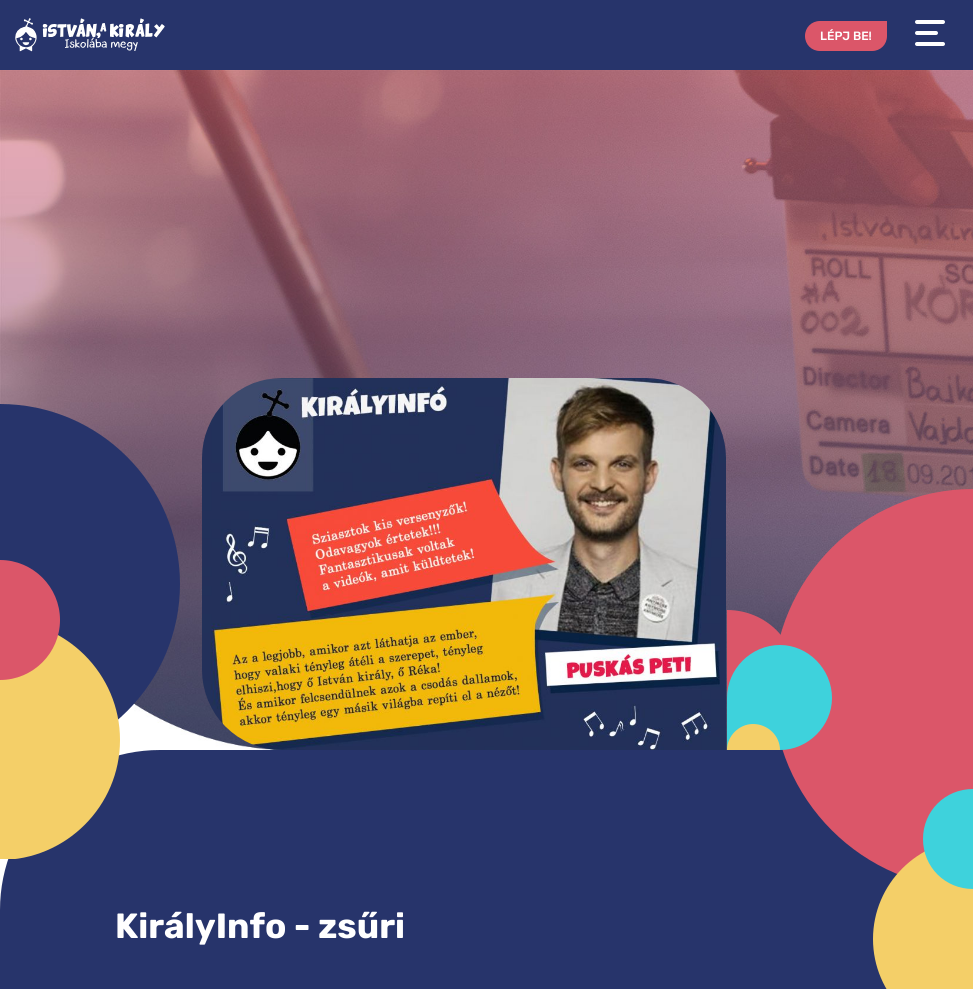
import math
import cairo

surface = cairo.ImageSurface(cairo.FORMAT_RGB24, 973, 989)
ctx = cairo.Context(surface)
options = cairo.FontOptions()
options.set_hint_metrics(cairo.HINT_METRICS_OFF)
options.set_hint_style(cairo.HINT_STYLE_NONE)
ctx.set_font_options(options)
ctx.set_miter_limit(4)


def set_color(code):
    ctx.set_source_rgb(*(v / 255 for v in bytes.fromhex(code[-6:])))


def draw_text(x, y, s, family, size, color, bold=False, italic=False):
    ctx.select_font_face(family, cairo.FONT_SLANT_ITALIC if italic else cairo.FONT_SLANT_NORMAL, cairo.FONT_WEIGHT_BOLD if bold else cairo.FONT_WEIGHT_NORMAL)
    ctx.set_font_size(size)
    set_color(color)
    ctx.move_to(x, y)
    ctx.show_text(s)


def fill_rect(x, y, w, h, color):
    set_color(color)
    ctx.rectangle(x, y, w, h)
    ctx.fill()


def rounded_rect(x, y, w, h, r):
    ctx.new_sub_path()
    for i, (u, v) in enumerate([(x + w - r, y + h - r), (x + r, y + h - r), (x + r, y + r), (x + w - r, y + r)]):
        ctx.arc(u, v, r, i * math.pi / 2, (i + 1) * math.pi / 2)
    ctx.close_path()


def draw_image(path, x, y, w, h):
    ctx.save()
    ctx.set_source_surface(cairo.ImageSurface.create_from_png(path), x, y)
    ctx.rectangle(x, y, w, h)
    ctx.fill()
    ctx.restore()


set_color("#ffffff")
ctx.paint()
fill_rect(0, 0, 973, 70, "#27346b")
draw_image("assets/img1.png", 15, 18, 150, 34)
set_color("#db5669")
ctx.new_path()
ctx.move_to(820, 21)
ctx.line_to(887, 21)
ctx.line_to(887, 36)
ctx.curve_to(887, 44.5, 880.5, 51, 872, 51)
ctx.line_to(820, 51)
ctx.curve_to(811.5, 51, 805, 44.5, 805, 36)
ctx.curve_to(805, 27.5, 811.5, 21, 820, 21)
ctx.close_path()
ctx.fill()
draw_text(820, 40, "LÉPJ BE!", "Rubik Medium", 12, "#ffffff")
rounded_rect(915, 20, 30, 4, 2)
ctx.fill()
rounded_rect(915, 31, 23, 4, 2)
ctx.fill()
rounded_rect(915, 42, 30, 4, 2)
ctx.fill()
draw_image("assets/img2.png", 0, 70, 973, 680)
set_color("#27346b")
ctx.new_path()
ctx.move_to(160, 750)
ctx.line_to(973, 750)
ctx.line_to(973, 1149)
ctx.line_to(160, 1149)
ctx.curve_to(71.5, 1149, 0, 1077.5, 0, 989)
ctx.line_to(0, 910)
ctx.curve_to(0, 821.5, 71.5, 750, 160, 750)
ctx.close_path()
ctx.fill()
ctx.new_path()
ctx.move_to(0, 404)
ctx.curve_to(99, 404, 180, 485, 180, 584)
ctx.curve_to(180, 683, 99, 764, 0, 764)
ctx.close_path()
ctx.fill()
ctx.save()
ctx.rectangle(0, 404, 180, 455)
ctx.clip()
set_color("#f4cf68")
ctx.new_path()
ctx.move_to(0, 620)
ctx.curve_to(66, 620, 120, 674, 120, 740)
ctx.curve_to(120, 806, 66, 860, 0, 860)
ctx.close_path()
ctx.fill()
ctx.restore()
set_color("#db5669")
ctx.new_path()
ctx.move_to(0, 560)
ctx.curve_to(33, 560, 60, 587, 60, 620)
ctx.curve_to(60, 653, 33, 680, 0, 680)
ctx.close_path()
ctx.fill()
draw_image("assets/img3.png", 202, 378, 524, 372)
ctx.new_path()
ctx.move_to(773, 689)
ctx.curve_to(773, 579, 863, 489, 973, 489)
ctx.line_to(973, 889)
ctx.curve_to(863, 889, 773, 799, 773, 689)
ctx.close_path()
ctx.fill()
ctx.new_path()
ctx.move_to(727, 610)
ctx.curve_to(766, 610, 797, 641, 797, 680)
ctx.curve_to(797, 719, 766, 750, 727, 750)
ctx.close_path()
ctx.fill()
set_color("#3ed2dc")
ctx.new_path()
ctx.move_to(832, 698)
ctx.curve_to(832, 726, 808, 750, 780, 750)
ctx.line_to(727, 750)
ctx.line_to(727, 698)
ctx.curve_to(727, 669, 751, 645, 780, 645)
ctx.curve_to(808, 645, 832, 669, 832, 698)
ctx.close_path()
ctx.fill()
set_color("#f4cf68")
ctx.new_path()
ctx.move_to(753, 724)
ctx.curve_to(768, 724, 780, 736, 780, 750)
ctx.line_to(727, 750)
ctx.curve_to(727, 736, 739, 724, 753, 724)
ctx.close_path()
ctx.fill()
ctx.new_path()
ctx.move_to(973, 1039)
ctx.curve_to(918, 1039, 873, 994, 873, 939)
ctx.curve_to(873, 884, 918, 839, 973, 839)
ctx.close_path()
ctx.fill()
set_color("#3ed2dc")
ctx.new_path()
ctx.move_to(973, 889)
ctx.curve_to(945, 889, 923, 867, 923, 839)
ctx.curve_to(923, 811, 945, 789, 973, 789)
ctx.close_path()
ctx.fill()
draw_text(115, 938, "KirályInfo - zsűri", "Rubik", 35, "#ffffff", bold=True)
surface.write_to_png("output.png")
